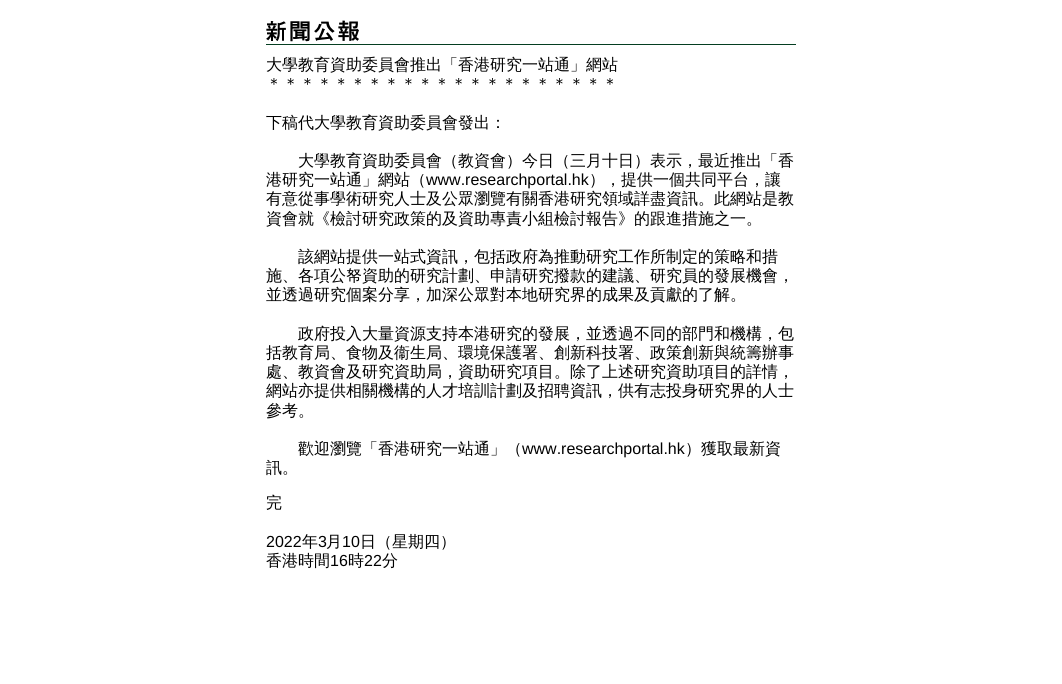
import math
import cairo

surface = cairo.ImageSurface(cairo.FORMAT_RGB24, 1062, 684)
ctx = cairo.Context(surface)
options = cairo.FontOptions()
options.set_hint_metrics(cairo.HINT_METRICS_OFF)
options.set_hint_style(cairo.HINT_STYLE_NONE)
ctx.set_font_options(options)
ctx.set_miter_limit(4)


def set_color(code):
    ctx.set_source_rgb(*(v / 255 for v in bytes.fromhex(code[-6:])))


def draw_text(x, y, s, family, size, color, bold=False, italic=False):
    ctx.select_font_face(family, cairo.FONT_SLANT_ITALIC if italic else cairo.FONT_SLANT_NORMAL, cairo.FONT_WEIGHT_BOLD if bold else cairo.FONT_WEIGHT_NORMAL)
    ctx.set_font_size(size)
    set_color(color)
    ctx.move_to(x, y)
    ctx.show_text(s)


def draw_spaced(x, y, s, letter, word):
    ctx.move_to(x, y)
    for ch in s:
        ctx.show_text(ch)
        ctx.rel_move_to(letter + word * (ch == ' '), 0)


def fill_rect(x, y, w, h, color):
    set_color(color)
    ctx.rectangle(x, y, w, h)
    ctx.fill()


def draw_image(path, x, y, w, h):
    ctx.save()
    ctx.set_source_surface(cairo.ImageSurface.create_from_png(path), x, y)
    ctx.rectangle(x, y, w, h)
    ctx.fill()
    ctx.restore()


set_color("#ffffff")
ctx.paint()
fill_rect(266, 44, 530, 1, "#053e21")
draw_image("assets/img1.png", 266, 20, 93, 22)
draw_text(266, 70, "大學教育資助委員會推出「香港研究一站通」網站", "WenQuanYi Zen Hei Medium", 16, "#000000")
draw_spaced(266, 89, "＊＊＊＊＊＊＊＊＊＊＊＊＊＊＊＊＊＊＊＊＊", 0.8, 0)
draw_text(266, 128, "下稿代大學教育資助委員會發出：", "WenQuanYi Zen Hei Medium", 16, "#000000")
draw_text(298, 166, "大學教育資助委員會（教資會）今日（三月十日）表示，最近推出「香", "WenQuanYi Zen Hei Medium", 16, "#000000")
draw_text(266, 185, "港研究一站通」網站（", "WenQuanYi Zen Hei Medium", 16, "#000000")
draw_text(426, 185, "www.researchportal.hk", "Liberation Sans", 16, "#000000")
draw_text(589, 185, "），提供一個共同平台，讓", "WenQuanYi Zen Hei Medium", 16, "#000000")
draw_text(266, 204, "有意從事學術研究人士及公眾瀏覽有關香港研究領域詳盡資訊。此網站是教", "WenQuanYi Zen Hei Medium", 16, "#000000")
draw_text(266, 224, "資會就《檢討研究政策的及資助專責小組檢討報告》的跟進措施之一。", "WenQuanYi Zen Hei Medium", 16, "#000000")
draw_text(298, 262, "該網站提供一站式資訊，包括政府為推動研究工作所制定的策略和措", "WenQuanYi Zen Hei Medium", 16, "#000000")
draw_text(266, 281, "施、各項公帑資助的研究計劃、申請研究撥款的建議、研究員的發展機會，", "WenQuanYi Zen Hei Medium", 16, "#000000")
draw_text(266, 300, "並透過研究個案分享，加深公眾對本地研究界的成果及貢獻的了解。", "WenQuanYi Zen Hei Medium", 16, "#000000")
draw_text(298, 339, "政府投入大量資源支持本港研究的發展，並透過不同的部門和機構，包", "WenQuanYi Zen Hei Medium", 16, "#000000")
draw_text(266, 358, "括教育局、食物及衞生局、環境保護署、創新科技署、政策創新與統籌辦事", "WenQuanYi Zen Hei Medium", 16, "#000000")
draw_text(266, 377, "處、教資會及研究資助局，資助研究項目。除了上述研究資助項目的詳情，", "WenQuanYi Zen Hei Medium", 16, "#000000")
draw_text(266, 396, "網站亦提供相關機構的人才培訓計劃及招聘資訊，供有志投身研究界的人士", "WenQuanYi Zen Hei Medium", 16, "#000000")
draw_text(266, 416, "參考。", "WenQuanYi Zen Hei Medium", 16, "#000000")
draw_text(298, 454, "歡迎瀏覽「香港研究一站通」（", "WenQuanYi Zen Hei Medium", 16, "#000000")
draw_text(522, 454, "www.researchportal.hk", "Liberation Sans", 16, "#000000")
draw_text(685, 454, "）獲取最新資", "WenQuanYi Zen Hei Medium", 16, "#000000")
draw_text(266, 473, "訊。", "WenQuanYi Zen Hei Medium", 16, "#000000")
draw_text(266, 508, "完", "WenQuanYi Zen Hei Medium", 16, "#000000")
draw_text(266, 547, "2022", "Liberation Sans", 16, "#000000")
draw_text(302, 547, "年", "WenQuanYi Zen Hei Medium", 16, "#000000")
draw_text(318, 547, "3", "Liberation Sans", 16, "#000000")
draw_text(326, 547, "月", "WenQuanYi Zen Hei Medium", 16, "#000000")
draw_text(342, 547, "10", "Liberation Sans", 16, "#000000")
draw_text(360, 547, "日（星期四）", "WenQuanYi Zen Hei Medium", 16, "#000000")
draw_text(266, 566, "香港時間", "WenQuanYi Zen Hei Medium", 16, "#000000")
draw_text(330, 566, "16", "Liberation Sans", 16, "#000000")
draw_text(348, 566, "時", "WenQuanYi Zen Hei Medium", 16, "#000000")
draw_text(364, 566, "22", "Liberation Sans", 16, "#000000")
draw_text(382, 566, "分", "WenQuanYi Zen Hei Medium", 16, "#000000")
surface.write_to_png("output.png")
